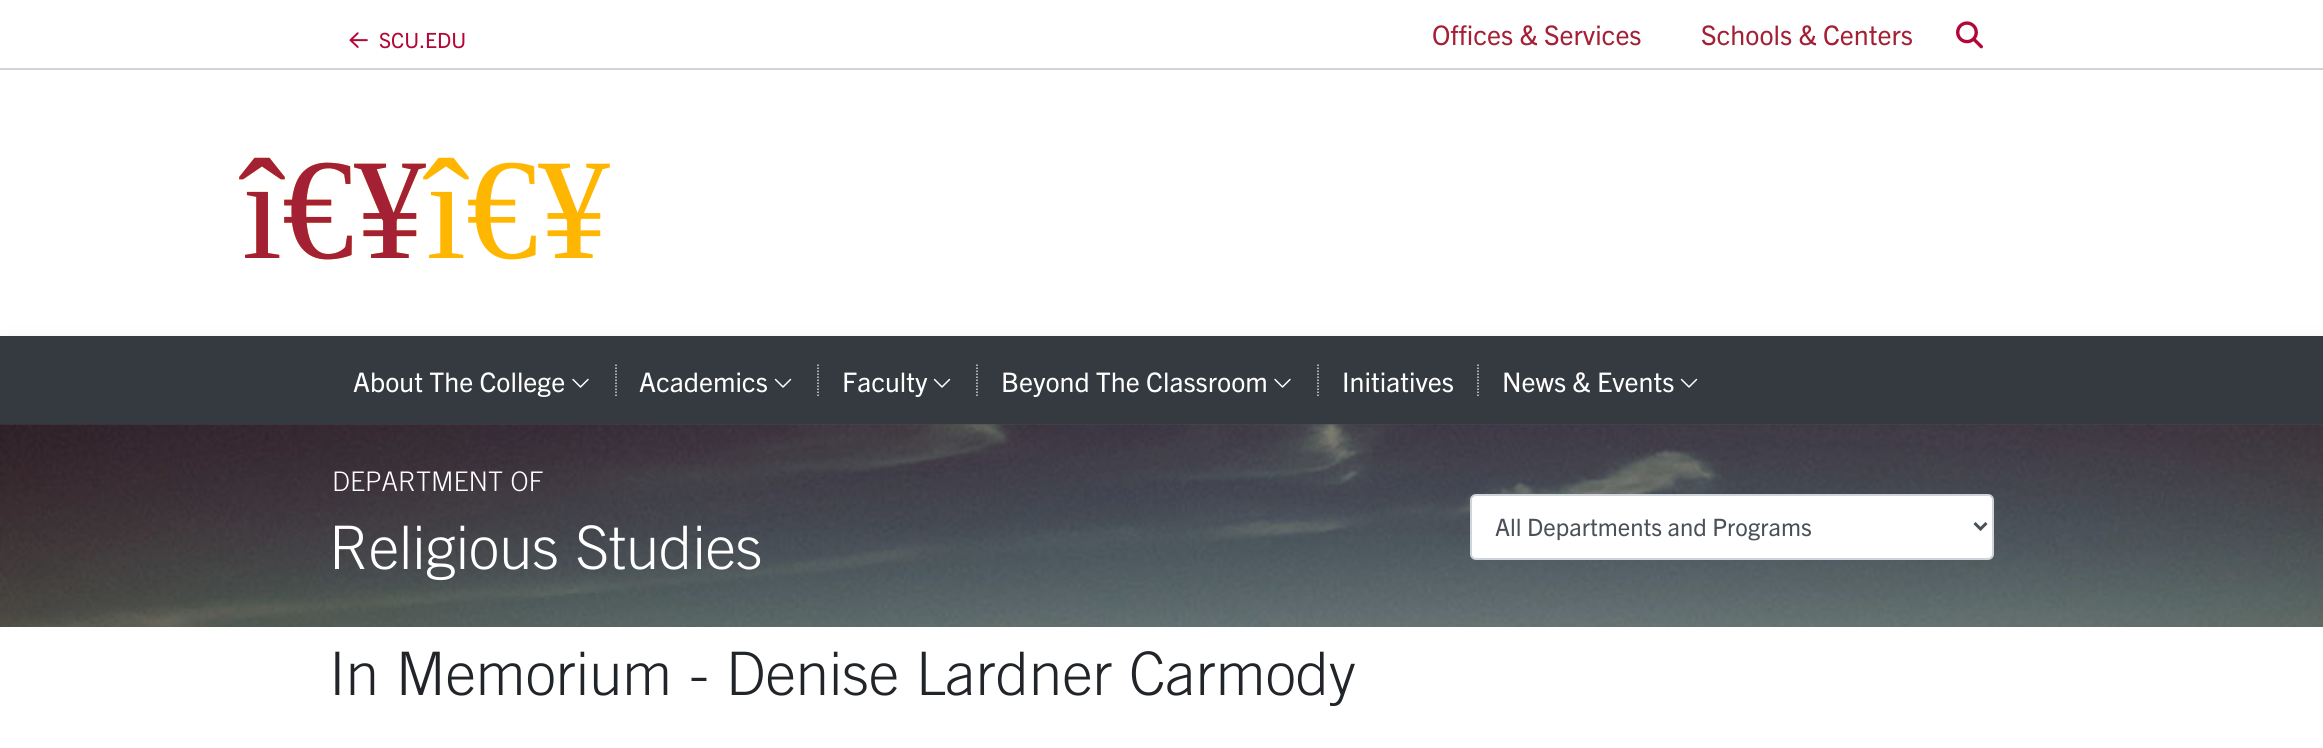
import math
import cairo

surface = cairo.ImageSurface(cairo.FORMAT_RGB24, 2323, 748)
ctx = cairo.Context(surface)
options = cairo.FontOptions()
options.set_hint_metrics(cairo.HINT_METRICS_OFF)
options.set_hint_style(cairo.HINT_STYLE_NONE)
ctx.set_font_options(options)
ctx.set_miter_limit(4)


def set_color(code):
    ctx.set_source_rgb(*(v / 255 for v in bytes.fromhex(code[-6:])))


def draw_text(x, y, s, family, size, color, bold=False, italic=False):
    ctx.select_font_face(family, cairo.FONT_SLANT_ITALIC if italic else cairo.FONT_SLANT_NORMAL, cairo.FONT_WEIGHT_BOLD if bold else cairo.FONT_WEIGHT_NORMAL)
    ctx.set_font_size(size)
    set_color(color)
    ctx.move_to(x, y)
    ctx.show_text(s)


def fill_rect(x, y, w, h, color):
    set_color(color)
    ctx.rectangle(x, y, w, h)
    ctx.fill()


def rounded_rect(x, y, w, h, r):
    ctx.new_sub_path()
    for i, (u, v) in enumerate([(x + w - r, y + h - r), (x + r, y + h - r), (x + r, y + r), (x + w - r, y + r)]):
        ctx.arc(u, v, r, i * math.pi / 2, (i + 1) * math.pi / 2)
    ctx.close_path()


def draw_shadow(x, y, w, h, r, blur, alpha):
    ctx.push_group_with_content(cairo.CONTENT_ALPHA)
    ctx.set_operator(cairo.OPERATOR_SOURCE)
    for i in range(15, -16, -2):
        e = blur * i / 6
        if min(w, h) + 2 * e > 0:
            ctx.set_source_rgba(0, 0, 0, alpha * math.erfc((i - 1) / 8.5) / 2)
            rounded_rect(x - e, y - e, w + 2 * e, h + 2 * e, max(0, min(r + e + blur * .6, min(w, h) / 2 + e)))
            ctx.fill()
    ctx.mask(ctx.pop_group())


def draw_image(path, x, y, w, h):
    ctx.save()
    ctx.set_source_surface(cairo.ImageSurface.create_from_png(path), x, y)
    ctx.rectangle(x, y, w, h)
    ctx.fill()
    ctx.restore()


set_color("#ffffff")
ctx.paint()
fill_rect(0, 68, 2323, 2, "#ced4da")
draw_image("assets/img1.png", 349, 32, 19, 16)
draw_text(379, 48, "SCU.EDU", "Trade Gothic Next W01", 21, "#b30738")
draw_text(1432, 45, "Offices & Services", "Trade Gothic Next W01", 27, "#a32035")
draw_text(1701, 45, "Schools & Centers", "Trade Gothic Next W01", 27, "#a32035")
draw_image("assets/img2.png", 1956, 21, 27, 28)
draw_text(242, 258, "î€¥î€¥", "Liberation Serif", 144, "#ffb600")
draw_text(242, 258, "î€¥", "Liberation Serif", 144, "#a32035")
set_color("#000000")
draw_shadow(0, 348, 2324, 89, 0, 12, 0.15)
fill_rect(0, 336, 2323, 89, "#343a40")
draw_text(353, 392, "About The College", "Trade Gothic Next W01", 27, "#ffffff")
draw_image("assets/img3.png", 572, 378, 17, 10)
ctx.new_path()
ctx.move_to(616, 364.5)
ctx.line_to(616, 397.5)
set_color("#ced4da")
ctx.set_line_width(1.5)
ctx.set_dash([1.5, 1.5])
ctx.stroke()
draw_text(639, 392, "Academics", "Trade Gothic Next W01", 27, "#ffffff")
draw_image("assets/img4.png", 774, 378, 18, 10)
ctx.new_path()
ctx.move_to(818, 364.5)
ctx.line_to(818, 397.5)
set_color("#ced4da")
ctx.stroke()
draw_text(842, 392, "Faculty", "Trade Gothic Next W01", 27, "#ffffff")
draw_image("assets/img4.png", 933, 378, 18, 10)
ctx.new_path()
ctx.move_to(977, 364.5)
ctx.line_to(977, 397.5)
set_color("#ced4da")
ctx.stroke()
draw_text(1001, 392, "Beyond The Classroom", "Trade Gothic Next W01", 27, "#ffffff")
draw_image("assets/img3.png", 1274, 378, 17, 10)
ctx.new_path()
ctx.move_to(1318, 364.5)
ctx.line_to(1318, 397.5)
set_color("#ced4da")
ctx.stroke()
draw_text(1342, 392, "Initiatives", "Trade Gothic Next W01", 27, "#ffffff")
ctx.new_path()
ctx.move_to(1478, 364.5)
ctx.line_to(1478, 397.5)
set_color("#ced4da")
ctx.stroke()
draw_text(1502, 392, "News & Events", "Trade Gothic Next W01", 27, "#ffffff")
draw_image("assets/img4.png", 1680, 378, 18, 10)
draw_image("assets/img5.png", 0, 424, 2323, 203)
draw_text(332, 491, "DEPARTMENT OF", "Trade Gothic Light", 27, "#ffffff")
draw_text(329, 569, "Religious Studies", "Trade Gothic Light", 60, "#ffffff")
rounded_rect(1471, 495, 522, 64, 5)
ctx.fill_preserve()
set_color("#ced4da")
ctx.set_line_width(2)
ctx.set_dash([])
ctx.stroke()
ctx.new_path()
ctx.move_to(1974.5, 523)
ctx.line_to(1980.5, 529)
ctx.line_to(1986.5, 523)
set_color("#495057")
ctx.set_line_width(3)
ctx.stroke()
draw_text(1495, 536, "All Departments and Programs", "Trade Gothic Next W01", 24, "#495057")
draw_text(329, 695, "In Memorium - Denise Lardner Carmody", "Trade Gothic Light", 60, "#212529")
surface.write_to_png("output.png")
